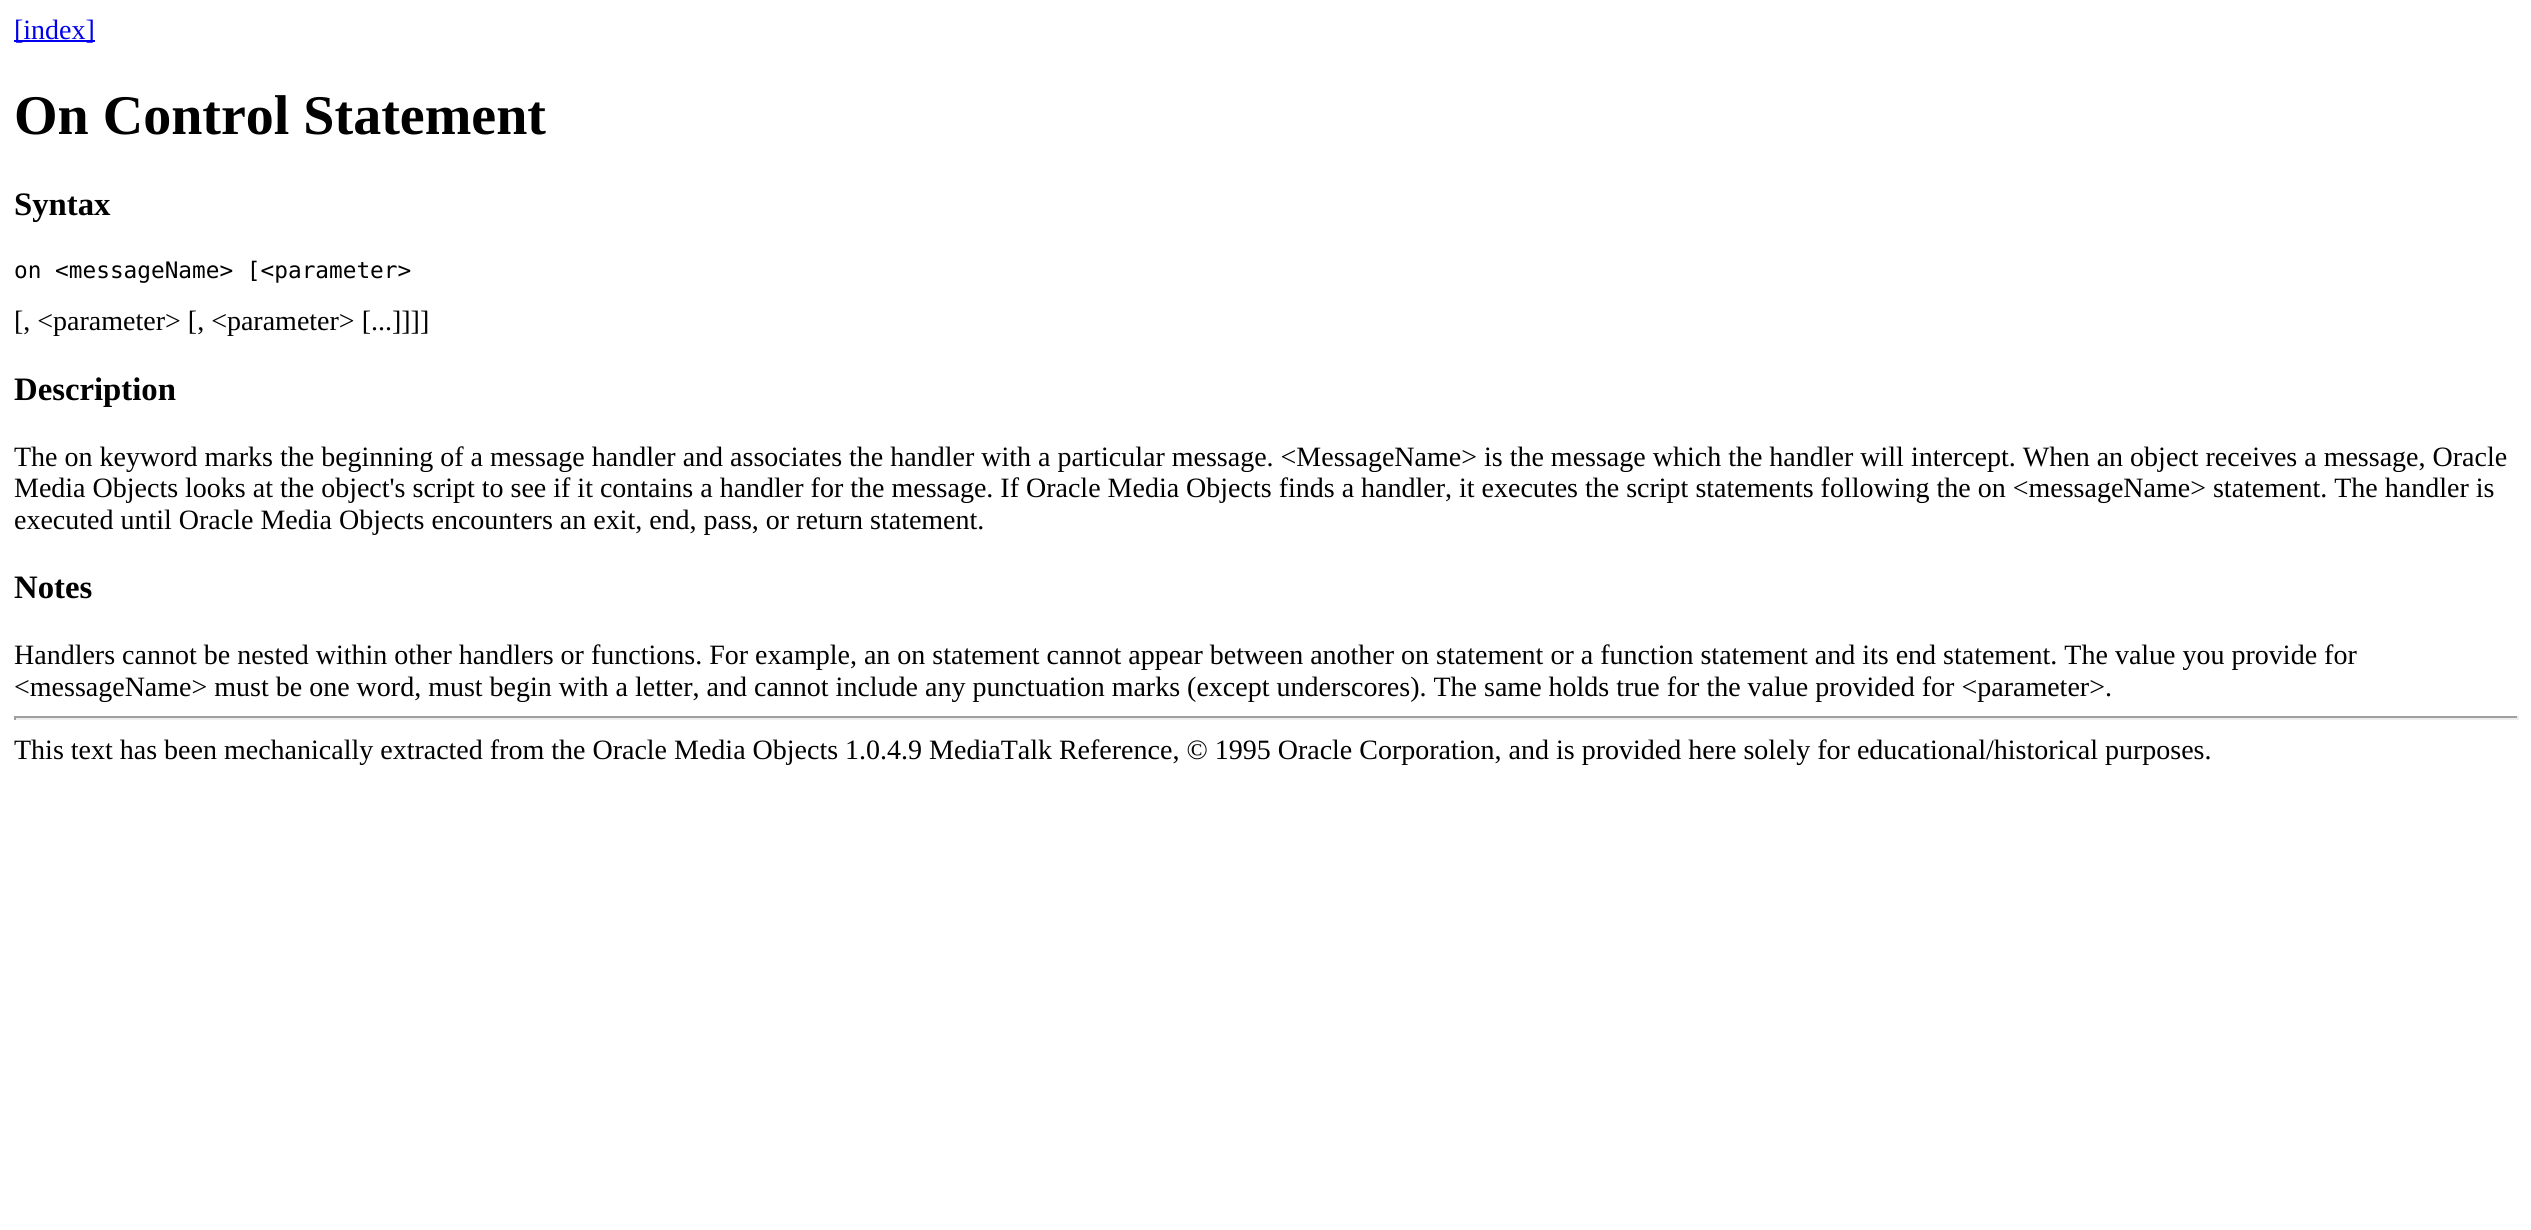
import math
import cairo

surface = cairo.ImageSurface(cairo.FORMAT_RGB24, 2531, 1230)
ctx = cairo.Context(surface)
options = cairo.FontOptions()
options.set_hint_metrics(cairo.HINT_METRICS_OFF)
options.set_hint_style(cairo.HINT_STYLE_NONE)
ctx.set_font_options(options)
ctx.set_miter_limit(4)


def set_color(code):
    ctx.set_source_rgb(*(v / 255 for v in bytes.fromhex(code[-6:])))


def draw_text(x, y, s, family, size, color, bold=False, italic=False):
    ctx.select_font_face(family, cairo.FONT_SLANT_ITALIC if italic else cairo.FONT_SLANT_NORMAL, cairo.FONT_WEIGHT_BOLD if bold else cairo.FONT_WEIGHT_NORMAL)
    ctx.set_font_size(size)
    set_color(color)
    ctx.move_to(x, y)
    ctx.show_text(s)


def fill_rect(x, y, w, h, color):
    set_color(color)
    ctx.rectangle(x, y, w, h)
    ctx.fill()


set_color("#ffffff")
ctx.paint()
fill_rect(14, 40, 81, 2, "#0000ee")
draw_text(14, 39, "[index]", "Liberation Serif", 28, "#0000ee")
draw_text(14, 134, "On Control Statement", "Liberation Serif", 56, "#000000", bold=True)
draw_text(14, 215, "Syntax", "Liberation Serif", 32.75, "#000000", bold=True)
draw_text(14, 278, "on <messageName> [<parameter>", "DejaVu Sans Mono", 22.75, "#000000")
draw_text(14, 330, "[, <parameter> [, <parameter> [...]]]]", "Liberation Serif", 28, "#000000")
draw_text(14, 400, "Description", "Liberation Serif", 32.75, "#000000", bold=True)
draw_text(14, 466, "The on keyword marks the beginning of a message handler and associates the handler with a particular message. <MessageName> is the message which the handler will intercept. When an object receives a message, Oracle", "Liberation Serif", 28, "#000000")
draw_text(14, 497, "Media Objects looks at the object's script to see if it contains a handler for the message. If Oracle Media Objects finds a handler, it executes the script statements following the on <messageName> statement. The handler is", "Liberation Serif", 28, "#000000")
draw_text(14, 529, "executed until Oracle Media Objects encounters an exit, end, pass, or return statement.", "Liberation Serif", 28, "#000000")
draw_text(14, 598, "Notes", "Liberation Serif", 32.75, "#000000", bold=True)
draw_text(14, 664, "Handlers cannot be nested within other handlers or functions. For example, an on statement cannot appear between another on statement or a function statement and its end statement. The value you provide for", "Liberation Serif", 28, "#000000")
draw_text(14, 696, "<messageName> must be one word, must begin with a letter, and cannot include any punctuation marks (except underscores). The same holds true for the value provided for <parameter>.", "Liberation Serif", 28, "#000000")
fill_rect(14, 716, 2504, 2, "#9f9f9f")
fill_rect(2517, 716, 2, 4, "#eeeeee")
fill_rect(14, 718, 2504, 2, "#eeeeee")
fill_rect(14, 716, 2, 4, "#9f9f9f")
draw_text(14, 759, "This text has been mechanically extracted from the Oracle Media Objects 1.0.4.9 MediaTalk Reference, © 1995 Oracle Corporation, and is provided here solely for educational/historical purposes.", "Liberation Serif", 28, "#000000")
surface.write_to_png("output.png")
